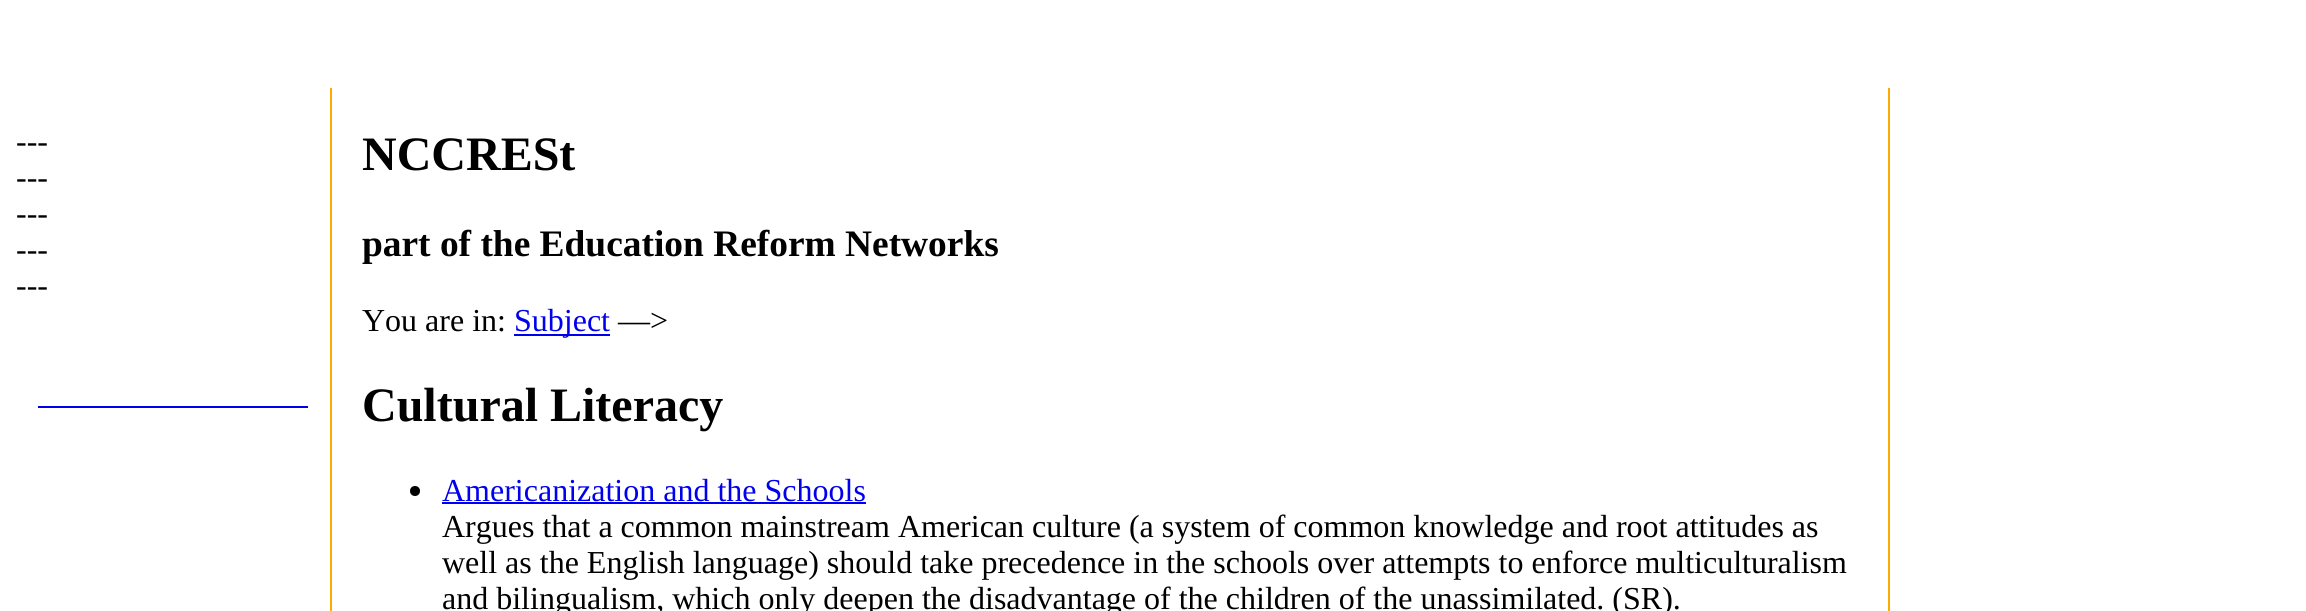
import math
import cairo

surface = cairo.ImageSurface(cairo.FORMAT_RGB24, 2306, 611)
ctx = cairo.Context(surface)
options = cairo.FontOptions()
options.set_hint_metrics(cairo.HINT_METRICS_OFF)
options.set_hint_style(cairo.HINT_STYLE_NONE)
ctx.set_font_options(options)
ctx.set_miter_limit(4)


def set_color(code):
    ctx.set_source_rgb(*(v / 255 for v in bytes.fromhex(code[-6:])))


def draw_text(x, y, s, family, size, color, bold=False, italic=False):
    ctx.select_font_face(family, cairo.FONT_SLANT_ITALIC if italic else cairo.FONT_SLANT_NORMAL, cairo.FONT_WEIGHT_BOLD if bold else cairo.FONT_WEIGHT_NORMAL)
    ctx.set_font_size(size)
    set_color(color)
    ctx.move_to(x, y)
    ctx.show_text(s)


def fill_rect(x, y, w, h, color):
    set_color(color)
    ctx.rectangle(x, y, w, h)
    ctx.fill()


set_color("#ffffff")
ctx.paint()
draw_text(16, 152, "---", "Liberation Serif", 32, "#000000")
draw_text(16, 188, "---", "Liberation Serif", 32, "#000000")
draw_text(16, 224, "---", "Liberation Serif", 32, "#000000")
draw_text(16, 260, "---", "Liberation Serif", 32, "#000000")
draw_text(16, 296, "---", "Liberation Serif", 32, "#000000")
fill_rect(38, 406, 270, 2, "#0000ee")
fill_rect(1888, 88, 2, 523, "#ffa901")
fill_rect(330, 88, 2, 523, "#ffa901")
draw_text(362, 170, "NCCRESt", "Liberation Serif", 48, "#000000", bold=True)
draw_text(362, 256, "part of the Education Reform Networks", "Liberation Serif", 37.4, "#000000", bold=True)
draw_text(362, 331, "You are in:", "Liberation Serif", 32, "#000000")
fill_rect(514, 334, 96, 2, "#0000ee")
draw_text(514, 331, "Subject", "Liberation Serif", 32, "#0000ee")
draw_text(618, 331, "—>", "Liberation Serif", 32, "#000000")
draw_text(362, 421, "Cultural Literacy", "Liberation Serif", 48, "#000000", bold=True)
ctx.new_path()
ctx.arc(415, 491, 5, 0, 2 * math.pi)
ctx.fill()
draw_text(442, 501, "Americanization and the Schools", "Liberation Serif", 32, "#0000ee")
fill_rect(442, 502, 424, 2, "#0000ee")
draw_text(442, 537, "Argues that a common mainstream American culture (a system of common knowledge and root attitudes as", "Liberation Serif", 32, "#000000")
draw_text(442, 573, "well as the English language) should take precedence in the schools over attempts to enforce multiculturalism", "Liberation Serif", 32, "#000000")
draw_text(442, 609, "and bilingualism, which only deepen the disadvantage of the children of the unassimilated. (SR).", "Liberation Serif", 32, "#000000")
surface.write_to_png("output.png")
